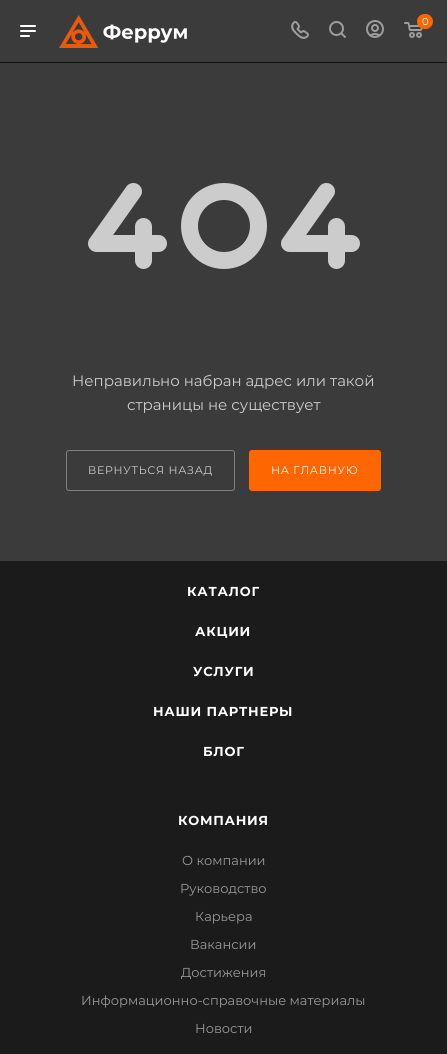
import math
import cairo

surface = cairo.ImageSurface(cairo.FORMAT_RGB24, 447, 1054)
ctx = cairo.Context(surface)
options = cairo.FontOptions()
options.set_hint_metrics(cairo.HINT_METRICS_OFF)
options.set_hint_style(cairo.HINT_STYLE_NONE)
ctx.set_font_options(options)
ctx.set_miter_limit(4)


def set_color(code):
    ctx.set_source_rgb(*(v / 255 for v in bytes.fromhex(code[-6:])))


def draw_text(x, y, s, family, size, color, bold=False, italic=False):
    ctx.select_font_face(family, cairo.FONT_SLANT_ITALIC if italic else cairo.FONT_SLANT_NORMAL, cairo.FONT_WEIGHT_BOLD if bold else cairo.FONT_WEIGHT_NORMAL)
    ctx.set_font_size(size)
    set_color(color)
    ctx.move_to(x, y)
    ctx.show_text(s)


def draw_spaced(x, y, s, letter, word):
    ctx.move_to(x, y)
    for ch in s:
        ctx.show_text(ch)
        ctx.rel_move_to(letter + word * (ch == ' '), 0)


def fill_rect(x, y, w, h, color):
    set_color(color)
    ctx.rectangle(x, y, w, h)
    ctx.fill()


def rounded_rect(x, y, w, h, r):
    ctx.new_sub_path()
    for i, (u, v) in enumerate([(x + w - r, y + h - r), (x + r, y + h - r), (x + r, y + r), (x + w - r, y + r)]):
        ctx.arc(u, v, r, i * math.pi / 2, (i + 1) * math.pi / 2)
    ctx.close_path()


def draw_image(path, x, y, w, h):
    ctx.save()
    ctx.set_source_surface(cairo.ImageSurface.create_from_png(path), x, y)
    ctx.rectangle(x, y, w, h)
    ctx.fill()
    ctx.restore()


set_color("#3b3b3b")
ctx.paint()
fill_rect(0, 62, 447, 1, "#121212")
draw_image("assets/img1.png", 59, 15, 128, 33)
draw_image("assets/img2.png", 291, 21, 18, 18)
draw_image("assets/img3.png", 329, 21, 17, 17)
draw_image("assets/img4.png", 366, 20, 18, 18)
draw_image("assets/img5.png", 404, 22, 19, 16)
set_color("#ff6600")
rounded_rect(417, 14, 16, 15, 7.5)
ctx.fill()
draw_text(422, 25, "0", "Montserrat", 10, "#ffffff")
draw_image("assets/img6.png", 20, 25, 16, 12)
draw_image("assets/img7.png", 88, 183, 272, 86)
draw_text(72, 386, "Неправильно набран адрес или такой", "Montserrat", 15, "#cccccc")
draw_text(127, 410, "страницы не существует", "Montserrat", 15, "#cccccc")
rounded_rect(66.5, 450.5, 168, 40, 2.5)
set_color("#808080")
ctx.set_line_width(1)
ctx.stroke()
ctx.set_font_size(11)
set_color("#cccccc")
draw_spaced(88, 474, "ВЕРНУТЬСЯ НАЗАД", 0.75, 0)
set_color("#ff6600")
rounded_rect(249.5, 450.5, 131, 40, 2.5)
ctx.fill_preserve()
ctx.stroke()
set_color("#ffffff")
draw_spaced(271, 474, "НА ГЛАВНУЮ", 0.75, 0)
fill_rect(0, 561, 447, 493, "#1b1b1b")
ctx.select_font_face("Montserrat", cairo.FONT_SLANT_NORMAL, cairo.FONT_WEIGHT_BOLD)
ctx.set_font_size(13)
set_color("#ffffff")
draw_spaced(187, 596, "КАТАЛОГ", 0.75, 0)
draw_spaced(195, 636, "АКЦИИ", 0.75, 0)
draw_spaced(193, 676, "УСЛУГИ", 0.75, 0)
draw_spaced(153, 716, "НАШИ ПАРТНЕРЫ", 0.75, 0)
draw_spaced(203, 756, "БЛОГ", 0.75, 0)
draw_spaced(178, 825, "КОМПАНИЯ", 0.75, 0)
draw_text(182, 865, "О компании", "Montserrat", 13, "#999999")
draw_text(180, 893, "Руководство", "Montserrat", 13, "#999999")
draw_text(195, 921, "Карьера", "Montserrat", 13, "#999999")
draw_text(190, 949, "Вакансии", "Montserrat", 13, "#999999")
draw_text(181, 977, "Достижения", "Montserrat", 13, "#999999")
draw_text(81, 1005, "Информационно-справочные материалы", "Montserrat", 13, "#999999")
draw_text(195, 1033, "Новости", "Montserrat", 13, "#999999")
surface.write_to_png("output.png")
